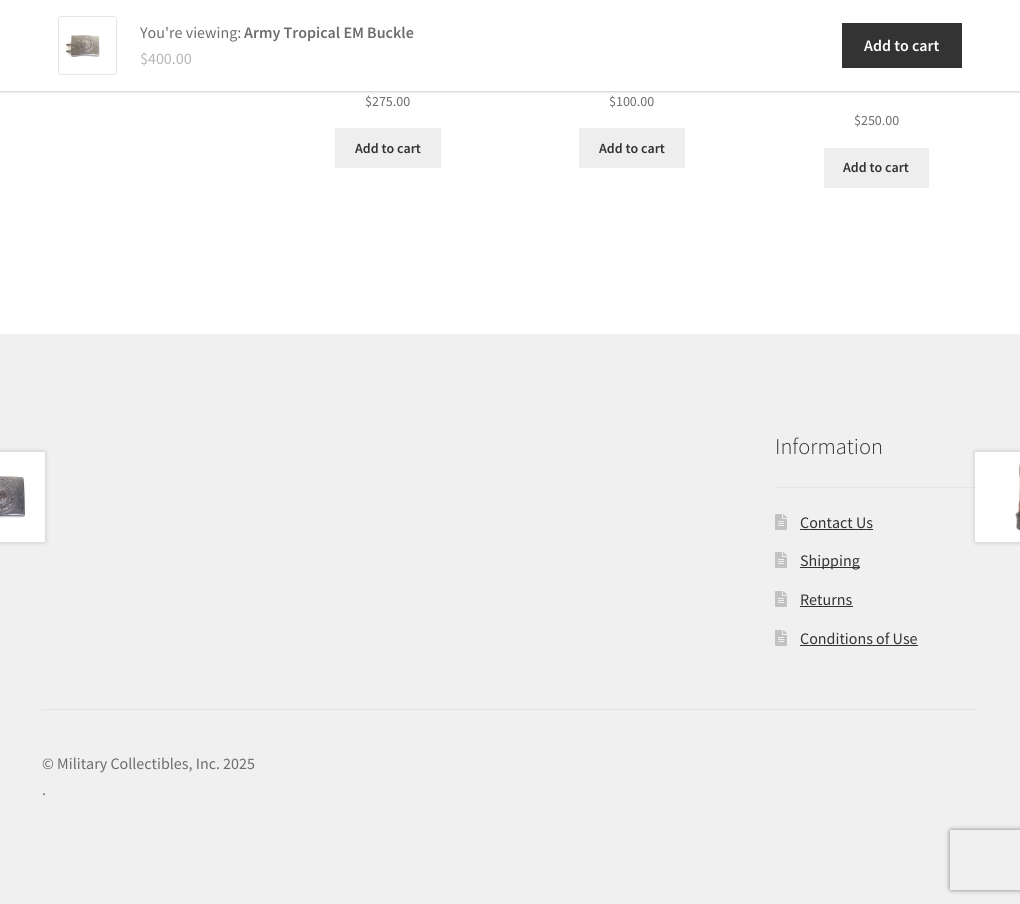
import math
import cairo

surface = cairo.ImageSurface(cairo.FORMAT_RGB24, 1020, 904)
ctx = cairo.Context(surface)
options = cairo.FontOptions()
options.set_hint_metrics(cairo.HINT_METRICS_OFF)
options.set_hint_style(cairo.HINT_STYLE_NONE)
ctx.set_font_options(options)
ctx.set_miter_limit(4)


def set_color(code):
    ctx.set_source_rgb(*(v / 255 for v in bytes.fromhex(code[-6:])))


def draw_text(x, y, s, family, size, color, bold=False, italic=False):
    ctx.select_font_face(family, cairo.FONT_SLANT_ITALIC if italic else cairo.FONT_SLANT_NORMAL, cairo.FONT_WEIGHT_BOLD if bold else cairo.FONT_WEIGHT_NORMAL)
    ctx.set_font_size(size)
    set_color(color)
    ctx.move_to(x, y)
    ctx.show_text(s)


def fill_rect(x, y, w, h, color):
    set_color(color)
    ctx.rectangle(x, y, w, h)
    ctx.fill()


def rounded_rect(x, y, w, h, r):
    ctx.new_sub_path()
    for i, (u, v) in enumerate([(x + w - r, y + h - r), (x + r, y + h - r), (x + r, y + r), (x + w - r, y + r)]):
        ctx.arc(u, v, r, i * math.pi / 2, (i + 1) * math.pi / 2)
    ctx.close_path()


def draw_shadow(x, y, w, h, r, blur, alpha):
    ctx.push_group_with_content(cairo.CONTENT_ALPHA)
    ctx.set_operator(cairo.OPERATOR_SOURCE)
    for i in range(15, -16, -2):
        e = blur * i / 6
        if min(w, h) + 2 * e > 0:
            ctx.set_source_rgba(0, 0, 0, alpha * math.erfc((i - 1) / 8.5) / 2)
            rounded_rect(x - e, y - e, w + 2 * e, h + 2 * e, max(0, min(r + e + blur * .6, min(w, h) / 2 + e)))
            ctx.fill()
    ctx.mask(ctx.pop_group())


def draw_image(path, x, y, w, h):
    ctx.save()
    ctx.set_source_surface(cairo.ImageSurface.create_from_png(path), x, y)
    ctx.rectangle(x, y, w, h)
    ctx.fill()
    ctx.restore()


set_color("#ffffff")
ctx.paint()
set_color("#000000")
draw_shadow(0, 1, 1020, 91, 0, 1, 0.2)
fill_rect(0, 0, 1020, 91, "#ffffff")
rounded_rect(58.5, 16.5, 58, 58, 2.5)
set_color("#e6e6e6")
ctx.set_line_width(1)
ctx.stroke()
draw_image("assets/img1.png", 66, 35, 34, 22)
draw_text(140, 38, "You're viewing:", "Source Sans Pro", 16, "#6d6d6d")
draw_text(244, 38, "Army Tropical EM Buckle", "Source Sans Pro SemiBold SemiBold", 16, "#6d6d6d")
draw_text(140, 64, "$400.00", "Source Sans Pro", 16, "#b6b6b6")
fill_rect(842, 23, 120, 45, "#333333")
draw_text(864, 51, "Add to cart", "Source Sans Pro SemiBold SemiBold", 16, "#ffffff")
draw_text(365, 106, "$275.00", "Source Sans Pro", 14, "#6d6d6d")
fill_rect(335, 128, 106, 40, "#eeeeee")
draw_text(355, 153, "Add to cart", "Source Sans Pro SemiBold SemiBold", 14, "#333333")
draw_text(609, 106, "$100.00", "Source Sans Pro", 14, "#6d6d6d")
fill_rect(579, 128, 106, 40, "#eeeeee")
draw_text(599, 153, "Add to cart", "Source Sans Pro SemiBold SemiBold", 14, "#333333")
draw_text(854, 125, "$250.00", "Source Sans Pro", 14, "#6d6d6d")
fill_rect(824, 148, 105, 40, "#eeeeee")
draw_text(843, 172, "Add to cart", "Source Sans Pro SemiBold SemiBold", 14, "#333333")
fill_rect(0, 334, 1020, 570, "#f0f0f0")
set_color("#000000")
draw_shadow(-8, 452, 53, 90, 0, 2.5, 0.2)
fill_rect(0, 452, 45, 90, "#ffffff")
draw_image("assets/img2.png", 0, 476, 26, 42)
fill_rect(775, 487, 203, 1, "#e4e4e4")
set_color("#000000")
draw_shadow(975, 452, 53, 90, 0, 2.5, 0.2)
fill_rect(975, 452, 45, 90, "#ffffff")
draw_image("assets/img3.png", 1015, 463, 5, 70)
fill_rect(42, 709, 936, 1, "#e4e4e4")
draw_text(775, 454, "Information", "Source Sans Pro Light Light", 22.5, "#333333")
draw_image("assets/img4.png", 775, 514, 12, 16)
draw_text(800, 528, "Contact Us", "Source Sans Pro", 16, "#333333")
fill_rect(800, 529, 73, 1, "#333333")
draw_image("assets/img4.png", 775, 552, 12, 16)
fill_rect(800, 567, 60, 1, "#333333")
draw_text(800, 566, "Shipping", "Source Sans Pro", 16, "#333333")
draw_image("assets/img4.png", 775, 591, 12, 16)
draw_text(800, 605, "Returns", "Source Sans Pro", 16, "#333333")
fill_rect(800, 606, 53, 1, "#333333")
draw_image("assets/img4.png", 775, 630, 12, 16)
draw_text(800, 644, "Conditions of Use", "Source Sans Pro", 16, "#333333")
fill_rect(800, 645, 118, 1, "#333333")
draw_text(42, 769, "© Military Collectibles, Inc. 2025", "Source Sans Pro", 16, "#6d6d6d")
draw_text(42, 795, ".", "Source Sans Pro", 16, "#6d6d6d")
ctx.save()
ctx.set_fill_rule(cairo.FILL_RULE_EVEN_ODD)
ctx.new_path()
ctx.move_to(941, 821)
ctx.line_to(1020, 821)
ctx.line_to(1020, 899)
ctx.line_to(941, 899)
ctx.close_path()
ctx.move_to(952, 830)
ctx.line_to(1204, 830)
ctx.curve_to(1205, 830, 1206, 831, 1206, 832)
ctx.line_to(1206, 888)
ctx.curve_to(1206, 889, 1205, 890, 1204, 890)
ctx.line_to(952, 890)
ctx.curve_to(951, 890, 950, 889, 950, 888)
ctx.line_to(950, 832)
ctx.curve_to(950, 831, 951, 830, 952, 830)
ctx.close_path()
ctx.clip()
set_color("#808080")
draw_shadow(950, 830, 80, 60, 2, 2.5, 1)
ctx.restore()
surface.write_to_png("output.png")
